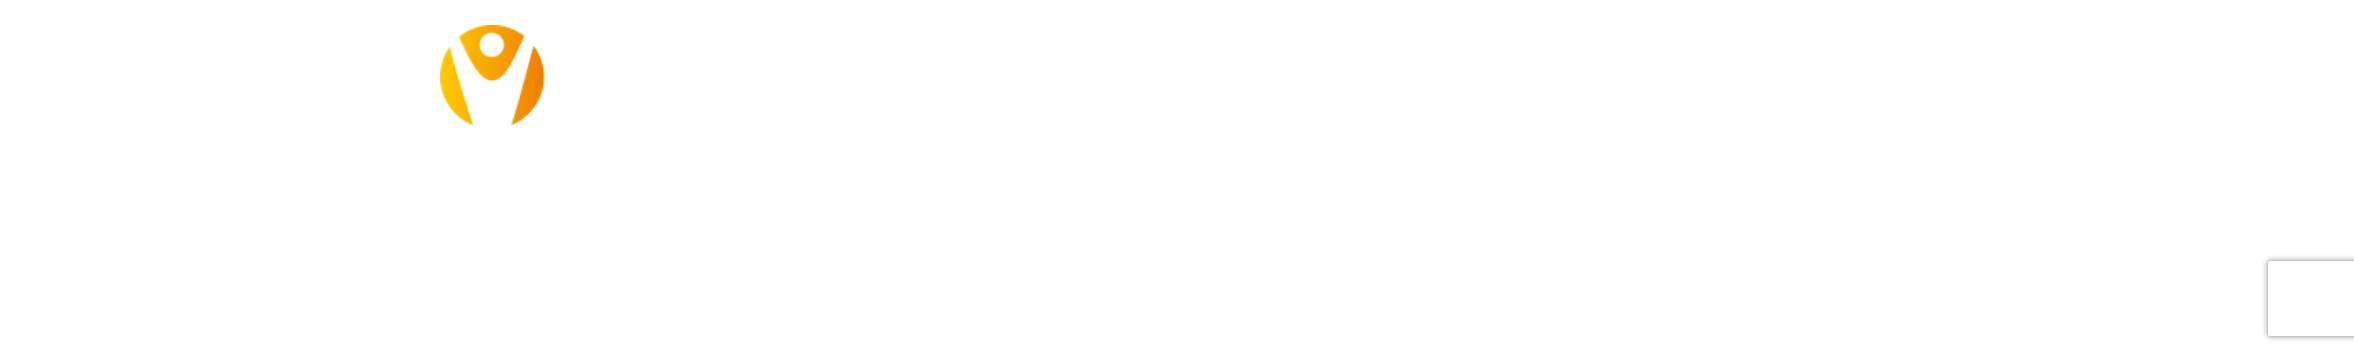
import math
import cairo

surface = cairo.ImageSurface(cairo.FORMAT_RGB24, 2354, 353)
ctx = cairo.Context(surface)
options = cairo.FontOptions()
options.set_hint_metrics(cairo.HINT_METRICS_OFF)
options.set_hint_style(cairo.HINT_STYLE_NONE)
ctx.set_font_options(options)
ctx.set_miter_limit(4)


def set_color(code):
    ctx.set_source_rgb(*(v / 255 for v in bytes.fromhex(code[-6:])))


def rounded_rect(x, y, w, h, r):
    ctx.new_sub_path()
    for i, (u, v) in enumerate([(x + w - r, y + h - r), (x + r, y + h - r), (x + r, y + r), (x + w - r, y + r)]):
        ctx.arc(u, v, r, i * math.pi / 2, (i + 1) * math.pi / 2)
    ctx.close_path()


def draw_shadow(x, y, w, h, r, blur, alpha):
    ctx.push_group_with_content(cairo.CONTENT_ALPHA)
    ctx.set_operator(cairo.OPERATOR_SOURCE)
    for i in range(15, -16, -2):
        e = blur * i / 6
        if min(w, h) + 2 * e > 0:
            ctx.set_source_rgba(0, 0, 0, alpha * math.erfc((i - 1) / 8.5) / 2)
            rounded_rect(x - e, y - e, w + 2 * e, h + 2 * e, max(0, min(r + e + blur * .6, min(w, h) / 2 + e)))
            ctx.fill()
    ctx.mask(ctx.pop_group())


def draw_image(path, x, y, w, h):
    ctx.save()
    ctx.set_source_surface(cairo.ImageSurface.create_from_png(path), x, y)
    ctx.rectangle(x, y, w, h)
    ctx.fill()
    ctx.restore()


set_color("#ffffff")
ctx.paint()
draw_image("assets/img1.png", 440, 25, 105, 101)
ctx.save()
ctx.set_fill_rule(cairo.FILL_RULE_EVEN_ODD)
ctx.new_path()
ctx.move_to(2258, 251)
ctx.line_to(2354, 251)
ctx.line_to(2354, 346)
ctx.line_to(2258, 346)
ctx.close_path()
ctx.move_to(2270.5, 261)
ctx.line_to(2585.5, 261)
ctx.curve_to(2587, 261, 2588, 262, 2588, 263.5)
ctx.line_to(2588, 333.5)
ctx.curve_to(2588, 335, 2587, 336, 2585.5, 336)
ctx.line_to(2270.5, 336)
ctx.curve_to(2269, 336, 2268, 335, 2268, 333.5)
ctx.line_to(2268, 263.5)
ctx.curve_to(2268, 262, 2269, 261, 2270.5, 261)
ctx.close_path()
ctx.clip()
set_color("#808080")
draw_shadow(2268, 261, 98, 75, 2.5, 3, 1)
ctx.restore()
surface.write_to_png("output.png")
